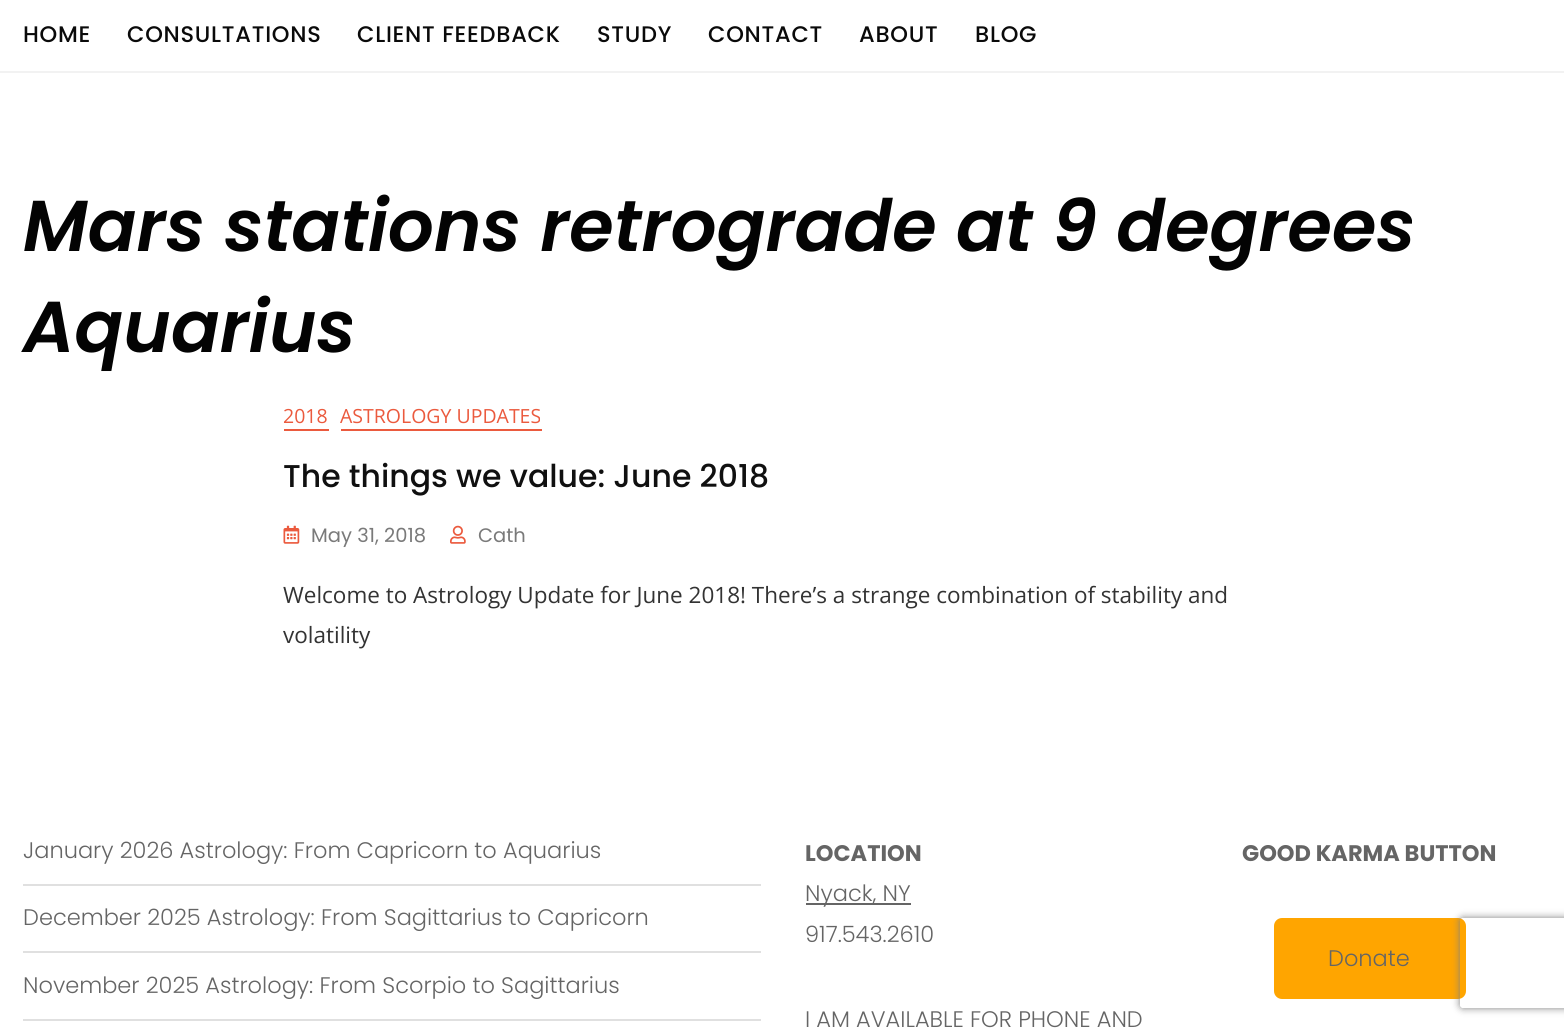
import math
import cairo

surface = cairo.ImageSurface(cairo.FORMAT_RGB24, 1564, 1029)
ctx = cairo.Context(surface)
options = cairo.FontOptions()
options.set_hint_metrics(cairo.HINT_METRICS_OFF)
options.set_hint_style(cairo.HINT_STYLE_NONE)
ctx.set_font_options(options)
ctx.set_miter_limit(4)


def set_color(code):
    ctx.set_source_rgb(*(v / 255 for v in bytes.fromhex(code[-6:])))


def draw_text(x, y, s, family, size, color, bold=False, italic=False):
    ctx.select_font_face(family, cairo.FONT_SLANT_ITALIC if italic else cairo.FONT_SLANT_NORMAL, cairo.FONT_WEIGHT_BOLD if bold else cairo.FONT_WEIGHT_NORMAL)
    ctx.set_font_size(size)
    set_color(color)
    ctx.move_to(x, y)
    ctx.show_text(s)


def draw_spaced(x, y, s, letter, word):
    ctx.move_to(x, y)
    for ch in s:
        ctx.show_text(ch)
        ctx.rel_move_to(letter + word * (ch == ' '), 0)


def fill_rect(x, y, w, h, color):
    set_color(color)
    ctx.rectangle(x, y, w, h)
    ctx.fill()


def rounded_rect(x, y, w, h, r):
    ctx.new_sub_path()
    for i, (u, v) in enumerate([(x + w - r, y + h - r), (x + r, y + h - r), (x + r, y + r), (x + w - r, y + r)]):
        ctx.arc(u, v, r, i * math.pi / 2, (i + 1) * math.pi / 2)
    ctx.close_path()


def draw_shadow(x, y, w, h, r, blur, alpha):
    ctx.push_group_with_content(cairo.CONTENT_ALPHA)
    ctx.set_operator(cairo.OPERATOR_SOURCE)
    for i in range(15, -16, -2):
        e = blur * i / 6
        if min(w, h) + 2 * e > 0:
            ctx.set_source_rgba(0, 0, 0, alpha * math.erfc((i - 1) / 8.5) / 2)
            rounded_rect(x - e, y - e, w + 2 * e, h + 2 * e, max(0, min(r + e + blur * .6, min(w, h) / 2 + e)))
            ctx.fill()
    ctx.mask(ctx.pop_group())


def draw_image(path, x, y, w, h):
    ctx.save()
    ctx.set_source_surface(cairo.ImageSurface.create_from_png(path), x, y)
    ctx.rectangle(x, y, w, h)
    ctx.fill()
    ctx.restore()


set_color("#ffffff")
ctx.paint()
ctx.select_font_face("Poppins Medium")
ctx.set_font_size(22.5)
set_color("#0a0a0a")
draw_spaced(23, 42, "HOME", 0.75, 0)
draw_spaced(127, 42, "CONSULTATIONS", 0.75, 0)
draw_spaced(357, 42, "CLIENT FEEDBACK", 0.75, 0)
draw_spaced(597, 42, "STUDY", 0.75, 0)
draw_spaced(708, 42, "CONTACT", 0.75, 0)
draw_spaced(859, 42, "ABOUT", 0.75, 0)
draw_spaced(975, 42, "BLOG", 0.75, 0)
fill_rect(0, 71, 1564, 2, "#f2f2f2")
draw_text(23, 251, "Mars stations retrograde at 9 degrees", "Poppins SemiBold", 72, "#030303", italic=True)
draw_text(23, 352, "Aquarius", "Poppins SemiBold", 72, "#030303", italic=True)
draw_text(283, 423, "2018", "Open Sans", 19.5, "#eb5a3e")
fill_rect(284, 429, 45, 2, "#eb5a3e")
draw_text(340, 423, "ASTROLOGY UPDATES", "Open Sans", 19.5, "#eb5a3e")
fill_rect(341, 429, 201, 2, "#eb5a3e")
draw_text(283, 487, "The things we value: June 2018", "Poppins Medium", 31.5, "#101010")
draw_image("assets/img1.png", 283, 525, 17, 19)
draw_text(311, 542, "May 31, 2018", "Poppins", 19.5, "#7a7a7a")
draw_image("assets/img2.png", 450, 525, 16, 19)
draw_text(478, 542, "Cath", "Poppins", 19.5, "#7a7a7a")
draw_text(283, 603, "Welcome to Astrology Update for June 2018! There’s a strange combination of stability and", "Open Sans", 22.5, "#333333")
draw_text(283, 643, "volatility", "Open Sans", 22.5, "#333333")
fill_rect(23, 884, 738, 2, "#e0e0e0")
draw_text(23, 858, "January 2026 Astrology: From Capricorn to Aquarius", "Poppins Light", 22.5, "#656565")
fill_rect(23, 951, 738, 2, "#e0e0e0")
draw_text(23, 925, "December 2025 Astrology: From Sagittarius to Capricorn", "Poppins Light", 22.5, "#656565")
fill_rect(23, 1019, 738, 2, "#e0e0e0")
draw_text(23, 993, "November 2025 Astrology: From Scorpio to Sagittarius", "Poppins Light", 22.5, "#656565")
draw_text(805, 861, "LOCATION", "Poppins", 22.5, "#656565", bold=True)
fill_rect(806, 903, 105, 2, "#656565")
draw_text(805, 901, "Nyack, NY", "Poppins Light", 22.5, "#656565")
draw_text(805, 942, "917.543.2610", "Poppins Light", 22.5, "#656565")
draw_text(805, 1027, "I AM AVAILABLE FOR PHONE AND", "Poppins Light", 22.5, "#656565")
draw_text(1242, 861, "GOOD KARMA BUTTON", "Poppins", 22.5, "#656565", bold=True)
set_color("#ffa500")
rounded_rect(1274, 918, 192, 81, 8)
ctx.fill()
draw_text(1328, 966, "Donate", "Poppins Light", 22.5, "#656565")
ctx.save()
ctx.set_fill_rule(cairo.FILL_RULE_EVEN_ODD)
ctx.new_path()
ctx.move_to(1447, 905)
ctx.line_to(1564, 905)
ctx.line_to(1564, 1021)
ctx.line_to(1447, 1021)
ctx.close_path()
ctx.move_to(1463, 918)
ctx.line_to(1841, 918)
ctx.curve_to(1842.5, 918, 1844, 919.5, 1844, 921)
ctx.line_to(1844, 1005)
ctx.curve_to(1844, 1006.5, 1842.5, 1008, 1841, 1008)
ctx.line_to(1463, 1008)
ctx.curve_to(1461.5, 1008, 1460, 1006.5, 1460, 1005)
ctx.line_to(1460, 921)
ctx.curve_to(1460, 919.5, 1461.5, 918, 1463, 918)
ctx.close_path()
ctx.clip()
set_color("#808080")
draw_shadow(1460, 918, 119, 90, 3, 4, 1)
ctx.restore()
surface.write_to_png("output.png")
